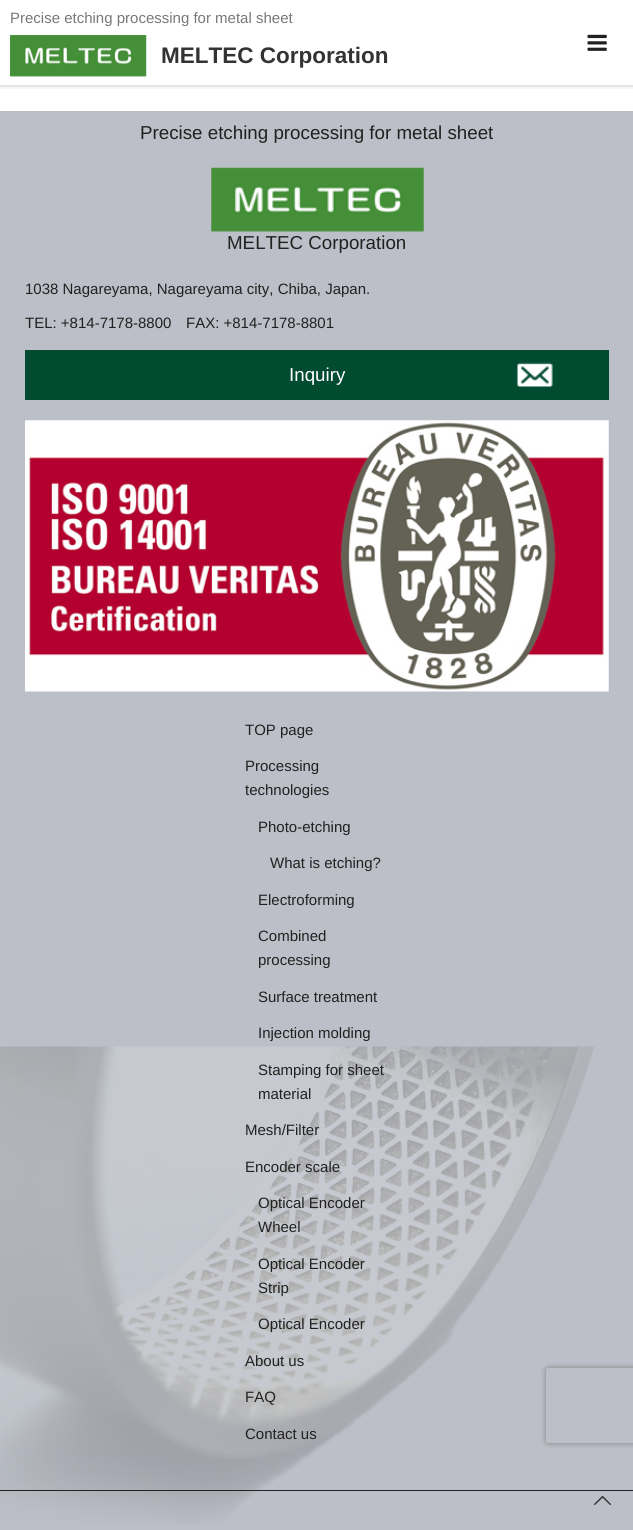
import math
import cairo

surface = cairo.ImageSurface(cairo.FORMAT_RGB24, 633, 1530)
ctx = cairo.Context(surface)
options = cairo.FontOptions()
options.set_hint_metrics(cairo.HINT_METRICS_OFF)
options.set_hint_style(cairo.HINT_STYLE_NONE)
ctx.set_font_options(options)
ctx.set_miter_limit(4)


def set_color(code):
    ctx.set_source_rgb(*(v / 255 for v in bytes.fromhex(code[-6:])))


def draw_text(x, y, s, family, size, color, bold=False, italic=False):
    ctx.select_font_face(family, cairo.FONT_SLANT_ITALIC if italic else cairo.FONT_SLANT_NORMAL, cairo.FONT_WEIGHT_BOLD if bold else cairo.FONT_WEIGHT_NORMAL)
    ctx.set_font_size(size)
    set_color(color)
    ctx.move_to(x, y)
    ctx.show_text(s)


def fill_rect(x, y, w, h, color):
    set_color(color)
    ctx.rectangle(x, y, w, h)
    ctx.fill()


def rounded_rect(x, y, w, h, r):
    ctx.new_sub_path()
    for i, (u, v) in enumerate([(x + w - r, y + h - r), (x + r, y + h - r), (x + r, y + r), (x + w - r, y + r)]):
        ctx.arc(u, v, r, i * math.pi / 2, (i + 1) * math.pi / 2)
    ctx.close_path()


def draw_shadow(x, y, w, h, r, blur, alpha):
    ctx.push_group_with_content(cairo.CONTENT_ALPHA)
    ctx.set_operator(cairo.OPERATOR_SOURCE)
    for i in range(15, -16, -2):
        e = blur * i / 6
        if min(w, h) + 2 * e > 0:
            ctx.set_source_rgba(0, 0, 0, alpha * math.erfc((i - 1) / 8.5) / 2)
            rounded_rect(x - e, y - e, w + 2 * e, h + 2 * e, max(0, min(r + e + blur * .6, min(w, h) / 2 + e)))
            ctx.fill()
    ctx.mask(ctx.pop_group())


def draw_image(path, x, y, w, h):
    ctx.save()
    ctx.set_source_surface(cairo.ImageSurface.create_from_png(path), x, y)
    ctx.rectangle(x, y, w, h)
    ctx.fill()
    ctx.restore()


set_color("#ffffff")
ctx.paint()
ctx.save()
ctx.rectangle(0, 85, 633, 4)
ctx.clip()
set_color("#000000")
draw_shadow(0, 1, 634, 85, 0, 2.5, 0.2)
ctx.restore()
draw_text(10, 23, "Precise etching processing for metal sheet", "Liberation Sans", 15, "#787878")
draw_image("assets/img1.png", 10, 35, 137, 42)
draw_text(161, 63, "MELTEC Corporation", "Liberation Sans", 22.5, "#333333", bold=True)
draw_image("assets/img2.png", 587, 34, 20, 17)
fill_rect(0, 111, 633, 1419, "#bcbfc7")
draw_image("assets/img3.png", 0, 1046, 594, 479)
draw_text(140, 139, "Precise etching processing for metal sheet", "Liberation Sans", 18.75, "#212121")
draw_image("assets/img4.png", 211, 167, 213, 65)
draw_text(227, 249, "MELTEC Corporation", "Liberation Sans", 18.75, "#212121")
draw_text(25, 294, "1038 Nagareyama, Nagareyama city, Chiba, Japan.", "Liberation Sans", 15, "#212121")
draw_text(25, 328, "TEL: +814-7178-8800", "Liberation Sans", 15, "#212121")
draw_text(186, 328, "FAX: +814-7178-8801", "Liberation Sans", 15, "#212121")
fill_rect(25, 350, 584, 50, "#014b31")
draw_text(289, 381, "Inquiry", "Liberation Sans", 18.75, "#ffffff")
draw_image("assets/img5.png", 517, 362, 36, 25)
draw_image("assets/img6.png", 25, 420, 584, 272)
fill_rect(0, 1490, 633, 1, "#222222")
draw_text(245, 735, "TOP page", "Liberation Sans", 15, "#212121")
draw_text(245, 771, "Processing", "Liberation Sans", 15, "#212121")
draw_text(245, 795, "technologies", "Liberation Sans", 15, "#212121")
draw_text(258, 832, "Photo-etching", "Liberation Sans", 15, "#212121")
draw_text(270, 868, "What is etching?", "Liberation Sans", 15, "#212121")
draw_text(258, 905, "Electroforming", "Liberation Sans", 15, "#212121")
draw_text(258, 941, "Combined", "Liberation Sans", 15, "#212121")
draw_text(258, 965, "processing", "Liberation Sans", 15, "#212121")
draw_text(258, 1002, "Surface treatment", "Liberation Sans", 15, "#212121")
draw_text(258, 1038, "Injection molding", "Liberation Sans", 15, "#212121")
draw_text(258, 1075, "Stamping for sheet", "Liberation Sans", 15, "#212121")
draw_text(258, 1099, "material", "Liberation Sans", 15, "#212121")
draw_text(245, 1135, "Mesh/Filter", "Liberation Sans", 15, "#212121")
draw_text(245, 1172, "Encoder scale", "Liberation Sans", 15, "#212121")
draw_text(258, 1208, "Optical Encoder", "Liberation Sans", 15, "#212121")
draw_text(258, 1232, "Wheel", "Liberation Sans", 15, "#212121")
draw_text(258, 1269, "Optical Encoder", "Liberation Sans", 15, "#212121")
draw_text(258, 1293, "Strip", "Liberation Sans", 15, "#212121")
draw_text(258, 1329, "Optical Encoder", "Liberation Sans", 15, "#212121")
draw_text(245, 1366, "About us", "Liberation Sans", 15, "#212121")
draw_text(245, 1402, "FAQ", "Liberation Sans", 15, "#212121")
draw_text(245, 1439, "Contact us", "Liberation Sans", 15, "#212121")
ctx.save()
ctx.set_fill_rule(cairo.FILL_RULE_EVEN_ODD)
ctx.new_path()
ctx.move_to(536, 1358)
ctx.line_to(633, 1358)
ctx.line_to(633, 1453)
ctx.line_to(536, 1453)
ctx.close_path()
ctx.move_to(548.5, 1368)
ctx.line_to(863.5, 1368)
ctx.curve_to(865, 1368, 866, 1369, 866, 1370.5)
ctx.line_to(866, 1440.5)
ctx.curve_to(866, 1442, 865, 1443, 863.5, 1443)
ctx.line_to(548.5, 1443)
ctx.curve_to(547, 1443, 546, 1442, 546, 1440.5)
ctx.line_to(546, 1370.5)
ctx.curve_to(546, 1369, 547, 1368, 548.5, 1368)
ctx.close_path()
ctx.clip()
set_color("#808080")
draw_shadow(546, 1368, 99, 75, 2.5, 3, 1)
ctx.restore()
draw_image("assets/img7.png", 594, 1496, 17, 9)
surface.write_to_png("output.png")
